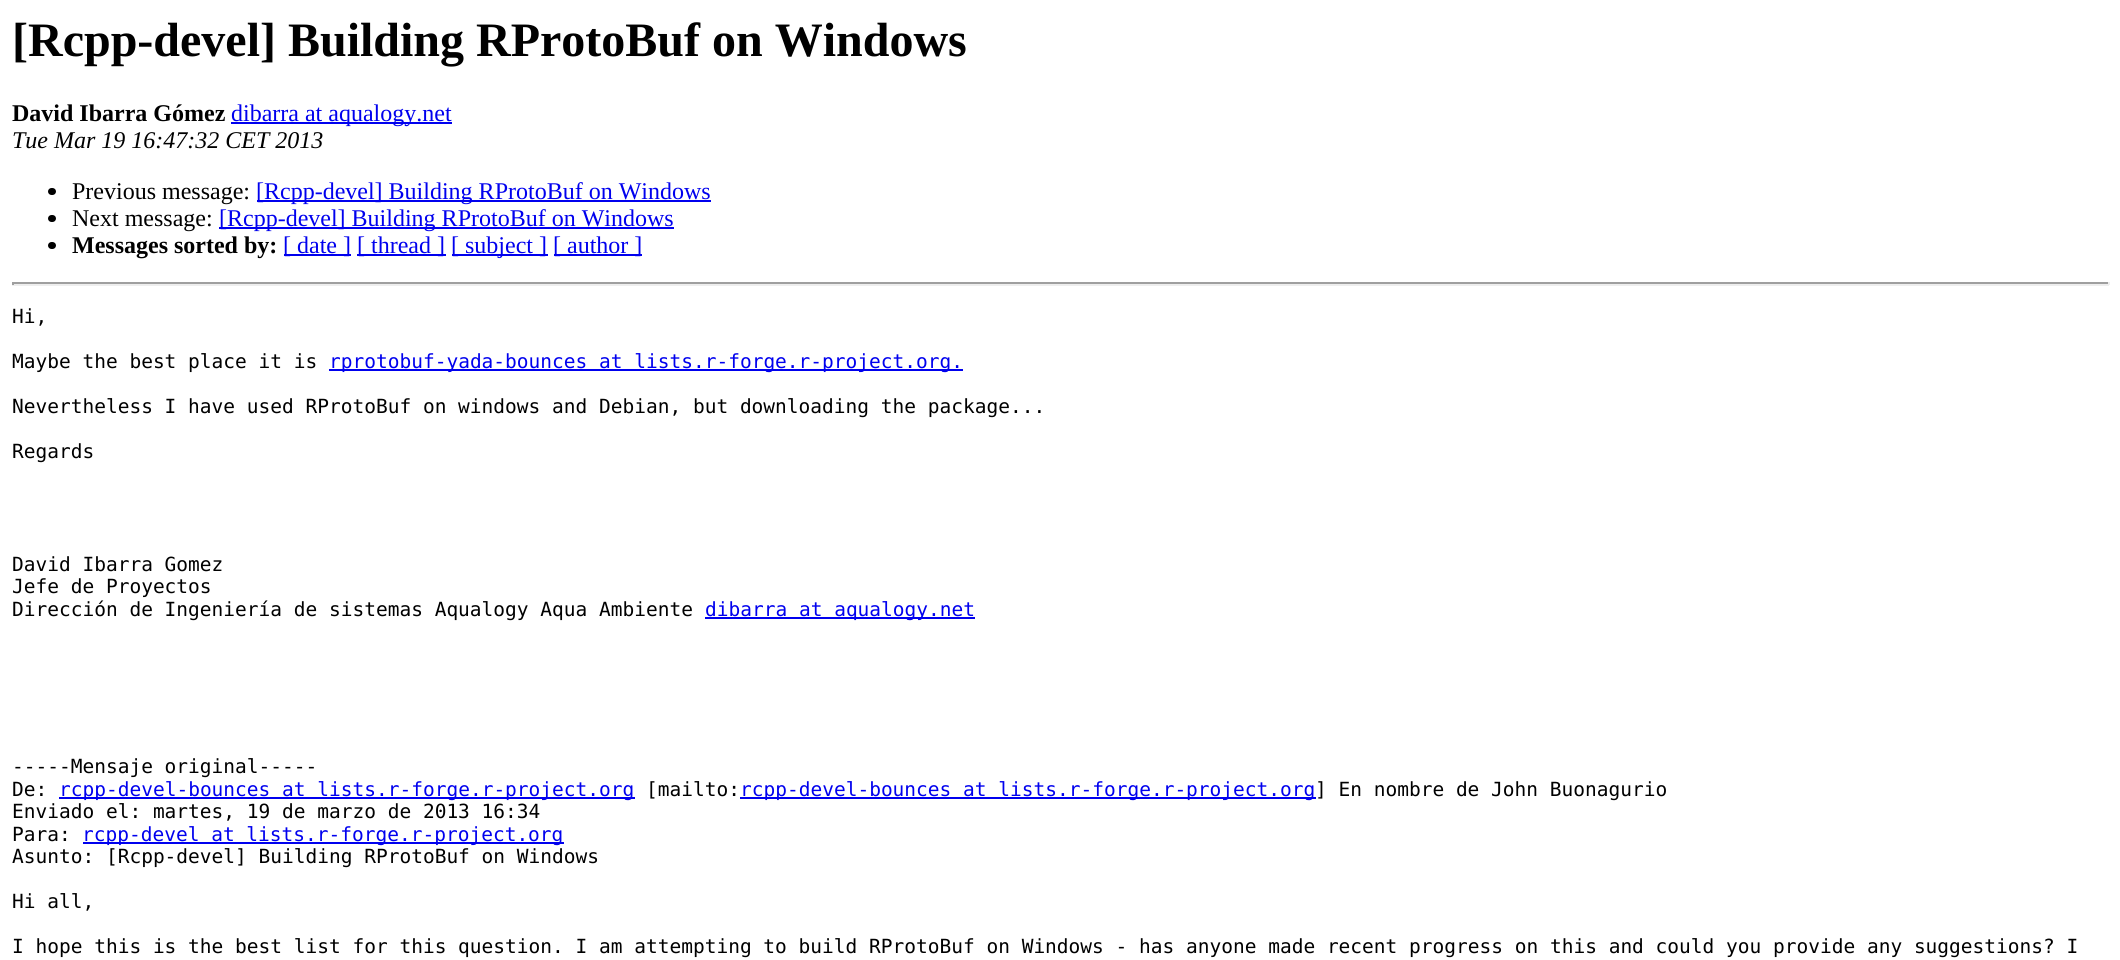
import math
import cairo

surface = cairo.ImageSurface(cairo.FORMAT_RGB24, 2120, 960)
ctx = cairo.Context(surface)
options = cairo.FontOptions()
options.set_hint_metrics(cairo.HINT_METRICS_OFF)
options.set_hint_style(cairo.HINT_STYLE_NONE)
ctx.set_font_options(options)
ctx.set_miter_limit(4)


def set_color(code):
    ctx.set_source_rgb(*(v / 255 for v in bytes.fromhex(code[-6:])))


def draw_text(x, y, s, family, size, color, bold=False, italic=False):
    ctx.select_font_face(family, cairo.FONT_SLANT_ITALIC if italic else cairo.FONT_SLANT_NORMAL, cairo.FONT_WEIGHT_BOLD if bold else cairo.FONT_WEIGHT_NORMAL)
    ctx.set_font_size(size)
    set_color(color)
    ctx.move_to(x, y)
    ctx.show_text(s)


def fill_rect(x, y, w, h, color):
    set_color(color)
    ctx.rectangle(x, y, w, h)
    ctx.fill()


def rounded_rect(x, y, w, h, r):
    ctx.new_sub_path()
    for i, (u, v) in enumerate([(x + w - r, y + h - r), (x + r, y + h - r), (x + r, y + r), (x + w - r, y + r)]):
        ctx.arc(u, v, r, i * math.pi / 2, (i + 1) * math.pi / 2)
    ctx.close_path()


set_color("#ffffff")
ctx.paint()
draw_text(12, 56, "[Rcpp-devel] Building RProtoBuf on Windows", "Liberation Serif", 48, "#000000", bold=True)
draw_text(12, 121, "David Ibarra Gómez", "Liberation Serif", 24, "#000000", bold=True)
fill_rect(231, 122, 221, 2, "#0000ee")
draw_text(231, 121, "dibarra at aqualogy.net", "Liberation Serif", 24, "#0000ee")
draw_text(12, 148, "Tue Mar 19 16:47:32 CET 2013", "Liberation Serif", 24, "#000000", italic=True)
rounded_rect(48, 188, 8, 7, 3.5)
ctx.fill()
draw_text(72, 199, "Previous message:", "Liberation Serif", 24, "#000000")
fill_rect(257, 200, 454, 2, "#0000ee")
draw_text(256, 199, "[Rcpp-devel] Building RProtoBuf on Windows", "Liberation Serif", 24, "#0000ee")
set_color("#000000")
rounded_rect(48, 215, 8, 7, 3.5)
ctx.fill()
draw_text(72, 226, "Next message:", "Liberation Serif", 24, "#000000")
fill_rect(219, 227, 455, 2, "#0000ee")
draw_text(219, 226, "[Rcpp-devel] Building RProtoBuf on Windows", "Liberation Serif", 24, "#0000ee")
set_color("#000000")
rounded_rect(48, 242, 8, 7, 3.5)
ctx.fill()
draw_text(72, 253, "Messages sorted by:", "Liberation Serif", 24, "#000000", bold=True)
fill_rect(284, 254, 67, 2, "#0000ee")
draw_text(283, 253, "[ date ]", "Liberation Serif", 24, "#0000ee")
fill_rect(357, 254, 89, 2, "#0000ee")
draw_text(357, 253, "[ thread ]", "Liberation Serif", 24, "#0000ee")
fill_rect(452, 254, 96, 2, "#0000ee")
draw_text(451, 253, "[ subject ]", "Liberation Serif", 24, "#0000ee")
fill_rect(554, 254, 88, 2, "#0000ee")
draw_text(553, 253, "[ author ]", "Liberation Serif", 24, "#0000ee")
fill_rect(12, 282, 2097, 2, "#9f9f9f")
fill_rect(2108, 282, 2, 3, "#eeeeee")
fill_rect(12, 284, 2097, 2, "#eeeeee")
fill_rect(12, 282, 2, 3, "#9f9f9f")
draw_text(12, 323, "Hi,", "DejaVu Sans Mono", 19.5, "#000000")
draw_text(12, 368, "Maybe the best place it is", "DejaVu Sans Mono", 19.5, "#000000")
fill_rect(329, 369, 634, 2, "#0000ee")
draw_text(329, 368, "rprotobuf-yada-bounces at lists.r-forge.r-project.org.", "DejaVu Sans Mono", 19.5, "#0000ee")
draw_text(12, 413, "Nevertheless I have used RProtoBuf on windows and Debian, but downloading the package...", "DejaVu Sans Mono", 19.5, "#000000")
draw_text(12, 458, "Regards", "DejaVu Sans Mono", 19.5, "#000000")
draw_text(12, 571, "David Ibarra Gomez", "DejaVu Sans Mono", 19.5, "#000000")
draw_text(12, 593, "Jefe de Proyectos", "DejaVu Sans Mono", 19.5, "#000000")
draw_text(12, 616, "Dirección de Ingeniería de sistemas Aqualogy Aqua Ambiente", "DejaVu Sans Mono", 19.5, "#000000")
fill_rect(705, 617, 270, 2, "#0000ee")
draw_text(705, 616, "dibarra at aqualogy.net", "DejaVu Sans Mono", 19.5, "#0000ee")
draw_text(12, 773, "-----Mensaje original-----", "DejaVu Sans Mono", 19.5, "#000000")
draw_text(12, 796, "De:", "DejaVu Sans Mono", 19.5, "#000000")
fill_rect(59, 797, 576, 2, "#0000ee")
draw_text(59, 796, "rcpp-devel-bounces at lists.r-forge.r-project.org", "DejaVu Sans Mono", 19.5, "#0000ee")
draw_text(646, 796, "[mailto:", "DejaVu Sans Mono", 19.5, "#000000")
fill_rect(740, 797, 576, 2, "#0000ee")
draw_text(740, 796, "rcpp-devel-bounces at lists.r-forge.r-project.org", "DejaVu Sans Mono", 19.5, "#0000ee")
draw_text(1315, 796, "] En nombre de John Buonagurio", "DejaVu Sans Mono", 19.5, "#000000")
draw_text(12, 818, "Enviado el: martes, 19 de marzo de 2013 16:34", "DejaVu Sans Mono", 19.5, "#000000")
draw_text(12, 841, "Para:", "DejaVu Sans Mono", 19.5, "#000000")
fill_rect(83, 842, 481, 2, "#0000ee")
draw_text(82, 841, "rcpp-devel at lists.r-forge.r-project.org", "DejaVu Sans Mono", 19.5, "#0000ee")
draw_text(12, 863, "Asunto: [Rcpp-devel] Building RProtoBuf on Windows", "DejaVu Sans Mono", 19.5, "#000000")
draw_text(12, 908, "Hi all,", "DejaVu Sans Mono", 19.5, "#000000")
draw_text(12, 953, "I hope this is the best list for this question. I am attempting to build RProtoBuf on Windows - has anyone made recent progress on this and could you provide any suggestions? I", "DejaVu Sans Mono", 19.5, "#000000")
surface.write_to_png("output.png")
